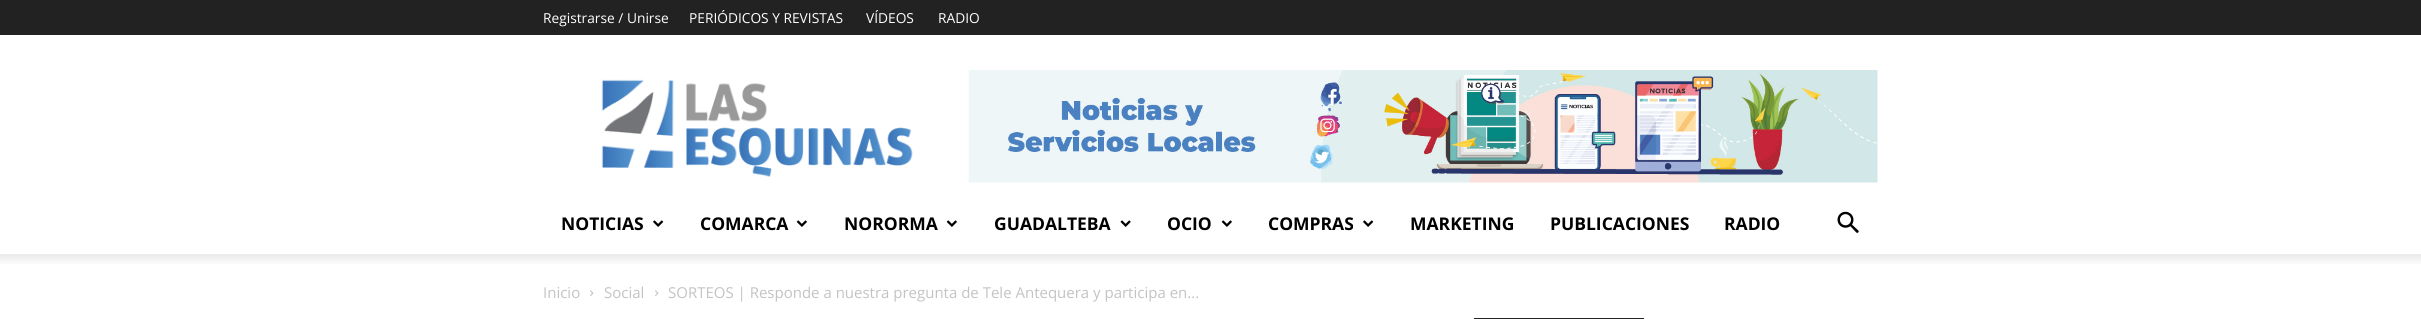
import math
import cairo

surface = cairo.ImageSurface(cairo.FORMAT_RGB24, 2421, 319)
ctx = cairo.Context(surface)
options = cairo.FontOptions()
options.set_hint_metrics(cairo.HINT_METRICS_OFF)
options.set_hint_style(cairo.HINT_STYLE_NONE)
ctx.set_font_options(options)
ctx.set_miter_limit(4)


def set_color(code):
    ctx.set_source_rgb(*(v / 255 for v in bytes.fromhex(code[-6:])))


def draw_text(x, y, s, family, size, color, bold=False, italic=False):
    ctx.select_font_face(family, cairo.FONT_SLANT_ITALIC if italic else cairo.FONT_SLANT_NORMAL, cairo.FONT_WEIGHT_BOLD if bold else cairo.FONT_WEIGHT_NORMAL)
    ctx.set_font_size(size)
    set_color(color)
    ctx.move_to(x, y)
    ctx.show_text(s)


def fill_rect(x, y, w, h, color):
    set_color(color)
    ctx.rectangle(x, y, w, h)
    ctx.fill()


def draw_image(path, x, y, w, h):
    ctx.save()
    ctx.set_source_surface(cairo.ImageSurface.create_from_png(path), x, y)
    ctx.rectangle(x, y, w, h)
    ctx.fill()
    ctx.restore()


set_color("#ffffff")
ctx.paint()
fill_rect(0, 0, 2421, 35, "#222222")
draw_text(543, 23, "Registrarse / Unirse", "Open Sans", 13.75, "#ffffff")
draw_text(689, 23, "PERIÓDICOS Y REVISTAS", "Open Sans", 13.75, "#ffffff")
draw_text(866, 23, "VÍDEOS", "Open Sans", 13.75, "#ffffff")
draw_text(938, 23, "RADIO", "Open Sans", 13.75, "#ffffff")
draw_image("assets/img1.png", 601, 79, 312, 98)
draw_image("assets/img2.png", 968, 70, 910, 113)
draw_text(561, 230, "NOTICIAS", "Open Sans", 17.5, "#000000", bold=True)
draw_image("assets/img3.png", 653, 220, 11, 7)
draw_text(700, 230, "COMARCA", "Open Sans", 17.5, "#000000", bold=True)
draw_image("assets/img4.png", 796, 220, 11, 7)
draw_text(844, 230, "NORORMA", "Open Sans", 17.5, "#000000", bold=True)
draw_image("assets/img4.png", 946, 220, 11, 7)
draw_text(994, 230, "GUADALTEBA", "Open Sans", 17.5, "#000000", bold=True)
draw_image("assets/img5.png", 1120, 220, 11, 7)
draw_text(1167, 230, "OCIO", "Open Sans", 17.5, "#000000", bold=True)
draw_image("assets/img4.png", 1221, 220, 11, 7)
draw_text(1268, 230, "COMPRAS", "Open Sans", 17.5, "#000000", bold=True)
draw_image("assets/img3.png", 1363, 220, 11, 7)
draw_text(1410, 230, "MARKETING", "Open Sans", 17.5, "#000000", bold=True)
draw_text(1550, 230, "PUBLICACIONES", "Open Sans", 17.5, "#000000", bold=True)
draw_text(1724, 230, "RADIO", "Open Sans", 17.5, "#000000", bold=True)
draw_image("assets/img6.png", 1837, 211, 22, 22)
draw_image("assets/img7.png", 0, 254, 2421, 10)
draw_text(543, 298, "Inicio", "Open Sans", 15, "#c3c3c3")
draw_image("assets/img8.png", 590, 290, 4, 6)
draw_text(604, 298, "Social", "Open Sans", 15, "#c3c3c3")
draw_image("assets/img8.png", 655, 290, 4, 6)
draw_text(668, 298, "SORTEOS | Responde a nuestra pregunta de Tele Antequera y participa en...", "Open Sans", 15, "#c3c3c3")
fill_rect(1474, 318, 170, 1, "#222222")
surface.write_to_png("output.png")
